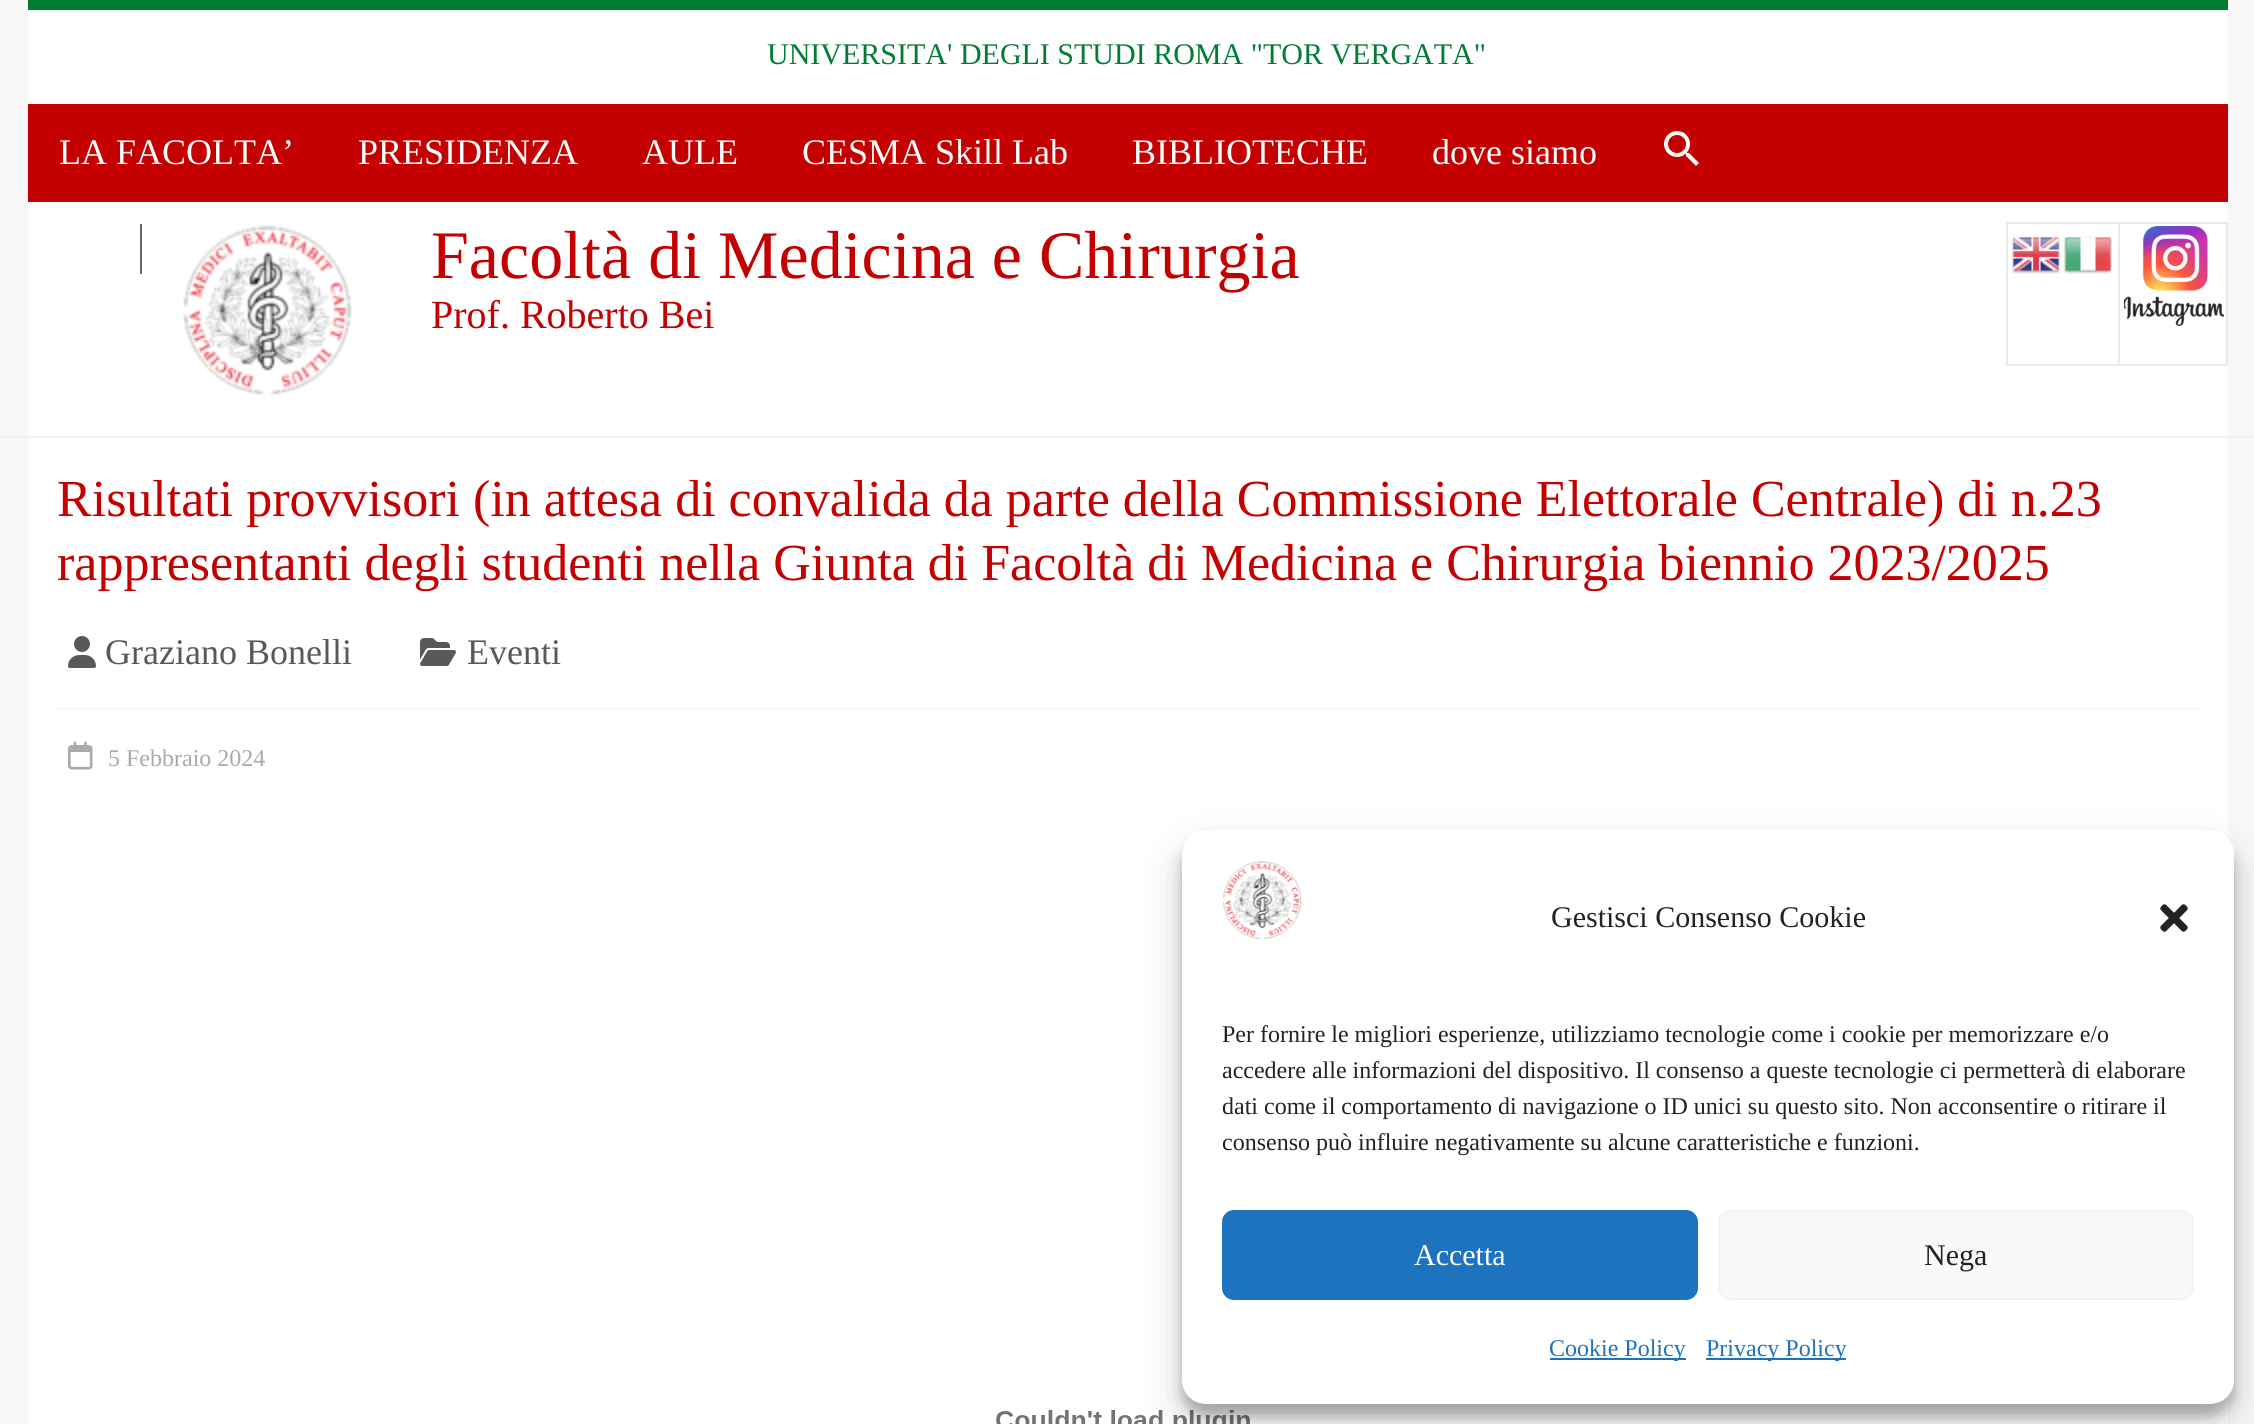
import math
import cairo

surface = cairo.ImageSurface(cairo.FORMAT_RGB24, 2254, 1424)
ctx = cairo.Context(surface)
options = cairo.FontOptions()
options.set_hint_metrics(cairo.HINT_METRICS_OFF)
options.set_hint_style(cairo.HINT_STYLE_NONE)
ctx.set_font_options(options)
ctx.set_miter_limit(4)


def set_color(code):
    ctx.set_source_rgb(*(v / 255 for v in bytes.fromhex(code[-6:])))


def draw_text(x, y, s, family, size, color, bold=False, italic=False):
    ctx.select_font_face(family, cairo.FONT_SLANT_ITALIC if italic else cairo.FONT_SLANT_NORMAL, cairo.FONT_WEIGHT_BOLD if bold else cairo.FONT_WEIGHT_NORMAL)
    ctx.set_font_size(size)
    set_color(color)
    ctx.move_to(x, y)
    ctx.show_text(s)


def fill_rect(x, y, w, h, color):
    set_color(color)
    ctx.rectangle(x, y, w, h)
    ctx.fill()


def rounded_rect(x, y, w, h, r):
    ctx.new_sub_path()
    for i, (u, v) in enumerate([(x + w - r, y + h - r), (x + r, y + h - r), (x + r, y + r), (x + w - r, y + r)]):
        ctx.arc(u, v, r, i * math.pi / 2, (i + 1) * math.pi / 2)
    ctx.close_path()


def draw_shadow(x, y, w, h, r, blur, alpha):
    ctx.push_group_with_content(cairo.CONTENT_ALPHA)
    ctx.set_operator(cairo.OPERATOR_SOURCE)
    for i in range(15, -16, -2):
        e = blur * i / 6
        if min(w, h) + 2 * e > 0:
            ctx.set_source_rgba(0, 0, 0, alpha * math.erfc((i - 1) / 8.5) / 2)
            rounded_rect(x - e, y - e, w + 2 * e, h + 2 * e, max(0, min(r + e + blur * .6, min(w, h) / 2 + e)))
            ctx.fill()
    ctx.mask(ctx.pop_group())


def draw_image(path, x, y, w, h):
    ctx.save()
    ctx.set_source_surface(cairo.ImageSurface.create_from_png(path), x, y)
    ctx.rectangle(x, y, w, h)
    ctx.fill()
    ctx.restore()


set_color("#f8f8f8")
ctx.paint()
fill_rect(0, 436, 2254, 2, "#f2f2f2")
fill_rect(28, 10, 2200, 426, "#ffffff")
fill_rect(28, 0, 2200, 10, "#007d34")
draw_text(767, 64, "UNIVERSITA' DEGLI STUDI ROMA \"TOR VERGATA\"", "Liberation Serif", 30, "#007d34")
fill_rect(28, 104, 2200, 98, "#c40000")
draw_text(59, 164, "LA FACOLTA’", "Liberation Serif", 36, "#ffffff")
draw_text(358, 164, "PRESIDENZA", "Liberation Serif", 36, "#ffffff")
draw_text(642, 164, "AULE", "Liberation Serif", 36, "#ffffff")
draw_text(802, 164, "CESMA Skill Lab", "Liberation Serif", 36, "#ffffff")
draw_text(1132, 164, "BIBLIOTECHE", "Liberation Serif", 36, "#ffffff")
draw_text(1432, 164, "dove siamo", "Liberation Serif", 36, "#ffffff")
draw_image("assets/img1.png", 1664, 131, 35, 35)
fill_rect(140, 224, 2, 50, "#666666")
draw_image("assets/img2.png", 183, 225, 169, 170)
draw_text(431, 278, "Facoltà di Medicina e Chirurgia", "Liberation Serif", 68, "#c40000")
draw_text(431, 328, "Prof. Roberto Bei", "Liberation Serif", 40, "#c40000")
fill_rect(2118, 222, 110, 2, "#eaeaea")
fill_rect(2226, 222, 2, 144, "#eaeaea")
fill_rect(2118, 364, 110, 2, "#eaeaea")
fill_rect(2118, 222, 2, 144, "#eaeaea")
fill_rect(2006, 222, 114, 2, "#eaeaea")
fill_rect(2006, 364, 114, 2, "#eaeaea")
fill_rect(2006, 222, 2, 144, "#eaeaea")
draw_image("assets/img3.png", 2012, 236, 48, 38)
draw_image("assets/img4.png", 2064, 236, 48, 38)
draw_image("assets/img5.png", 2124, 226, 100, 100)
fill_rect(28, 438, 2200, 986, "#ffffff")
draw_text(57, 516, "Risultati provvisori (in attesa di convalida da parte della Commissione Elettorale Centrale) di n.23", "Liberation Serif", 52, "#c40000")
draw_text(57, 580, "rappresentanti degli studenti nella Giunta di Facoltà di Medicina e Chirurgia biennio 2023/2025", "Liberation Serif", 52, "#c40000")
draw_image("assets/img6.png", 68, 636, 28, 32)
draw_text(105, 664, "Graziano Bonelli", "Liberation Serif", 36, "#595959")
draw_image("assets/img7.png", 420, 638, 36, 28)
draw_text(467, 664, "Eventi", "Liberation Serif", 36, "#595959")
fill_rect(58, 708, 2140, 2, "#f8f8f8")
draw_image("assets/img8.png", 68, 741, 25, 29)
draw_text(108, 766, "5 Febbraio 2024", "Liberation Serif", 24, "#aaaaaa")
draw_image("assets/img9.png", 996, 1410, 254, 14)
set_color("#000000")
draw_shadow(1182, 842, 1052, 574, 24, 6, 0.23)
draw_shadow(1182, 850, 1052, 574, 24, 20, 0.19)
set_color("#ffffff")
rounded_rect(1182, 830, 1052, 574, 24)
ctx.fill()
draw_image("assets/img10.png", 1223, 861, 79, 78)
draw_text(1551, 927, "Gestisci Consenso Cookie", "Liberation Serif", 30, "#222222")
draw_image("assets/img11.png", 2160, 904, 28, 28)
draw_text(1222, 1042, "Per fornire le migliori esperienze, utilizziamo tecnologie come i cookie per memorizzare e/o", "Liberation Serif", 24, "#222222")
draw_text(1222, 1078, "accedere alle informazioni del dispositivo. Il consenso a queste tecnologie ci permetterà di elaborare", "Liberation Serif", 24, "#222222")
draw_text(1222, 1114, "dati come il comportamento di navigazione o ID unici su questo sito. Non acconsentire o ritirare il", "Liberation Serif", 24, "#222222")
draw_text(1222, 1150, "consenso può influire negativamente su alcune caratteristiche e funzioni.", "Liberation Serif", 24, "#222222")
set_color("#1e73be")
rounded_rect(1223, 1211, 474, 88, 11)
ctx.fill_preserve()
ctx.stroke()
draw_text(1414, 1265, "Accetta", "Liberation Serif", 30, "#ffffff")
set_color("#f9f9f9")
rounded_rect(1719, 1211, 474, 88, 11)
ctx.fill_preserve()
set_color("#f2f2f2")
ctx.stroke()
draw_text(1924, 1265, "Nega", "Liberation Serif", 30, "#222222")
fill_rect(1550, 1358, 136, 2, "#1e73be")
draw_text(1549, 1356, "Cookie Policy", "Liberation Serif", 24, "#1e73be")
fill_rect(1706, 1358, 140, 2, "#1e73be")
draw_text(1706, 1356, "Privacy Policy", "Liberation Serif", 24, "#1e73be")
surface.write_to_png("output.png")
